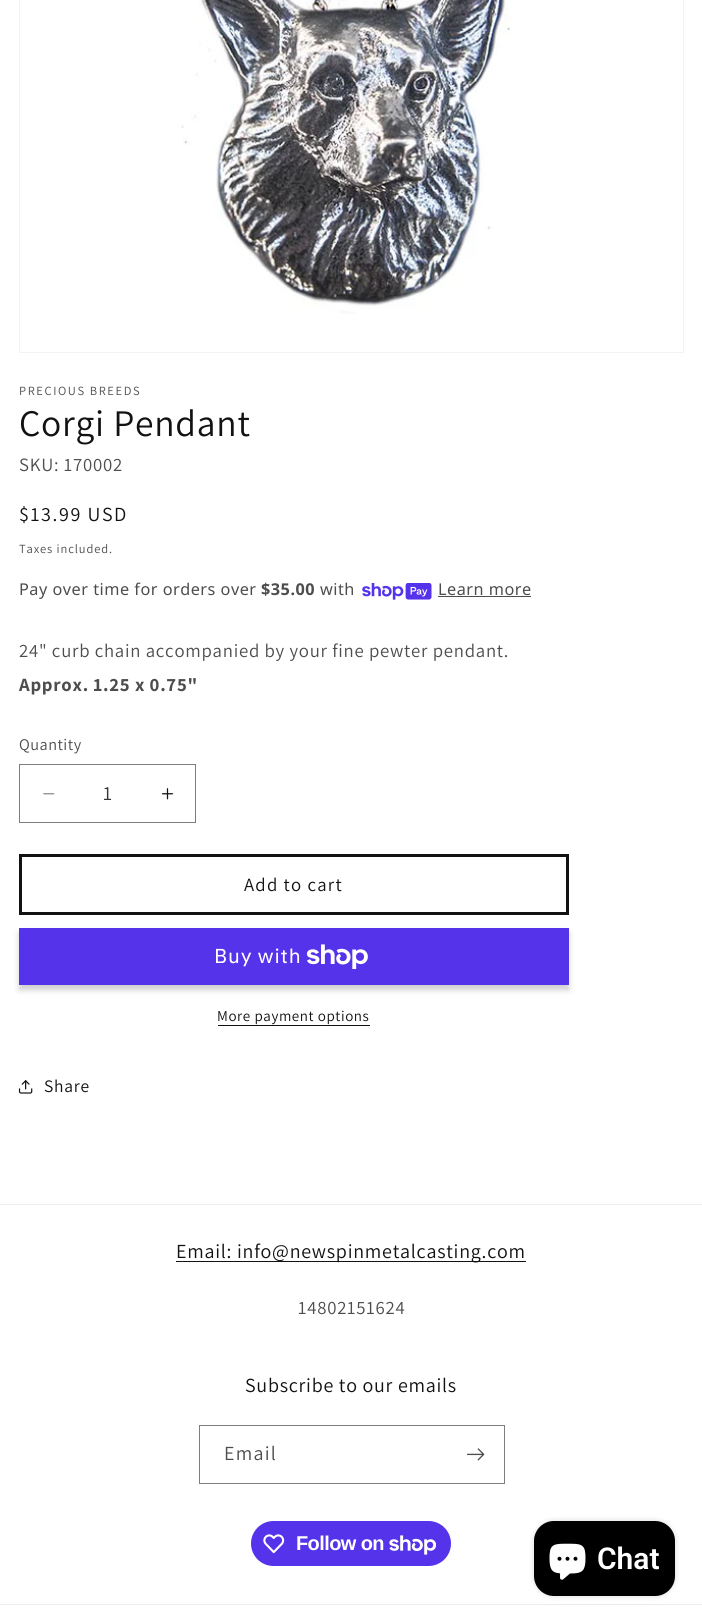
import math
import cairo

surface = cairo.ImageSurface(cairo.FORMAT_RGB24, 702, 1622)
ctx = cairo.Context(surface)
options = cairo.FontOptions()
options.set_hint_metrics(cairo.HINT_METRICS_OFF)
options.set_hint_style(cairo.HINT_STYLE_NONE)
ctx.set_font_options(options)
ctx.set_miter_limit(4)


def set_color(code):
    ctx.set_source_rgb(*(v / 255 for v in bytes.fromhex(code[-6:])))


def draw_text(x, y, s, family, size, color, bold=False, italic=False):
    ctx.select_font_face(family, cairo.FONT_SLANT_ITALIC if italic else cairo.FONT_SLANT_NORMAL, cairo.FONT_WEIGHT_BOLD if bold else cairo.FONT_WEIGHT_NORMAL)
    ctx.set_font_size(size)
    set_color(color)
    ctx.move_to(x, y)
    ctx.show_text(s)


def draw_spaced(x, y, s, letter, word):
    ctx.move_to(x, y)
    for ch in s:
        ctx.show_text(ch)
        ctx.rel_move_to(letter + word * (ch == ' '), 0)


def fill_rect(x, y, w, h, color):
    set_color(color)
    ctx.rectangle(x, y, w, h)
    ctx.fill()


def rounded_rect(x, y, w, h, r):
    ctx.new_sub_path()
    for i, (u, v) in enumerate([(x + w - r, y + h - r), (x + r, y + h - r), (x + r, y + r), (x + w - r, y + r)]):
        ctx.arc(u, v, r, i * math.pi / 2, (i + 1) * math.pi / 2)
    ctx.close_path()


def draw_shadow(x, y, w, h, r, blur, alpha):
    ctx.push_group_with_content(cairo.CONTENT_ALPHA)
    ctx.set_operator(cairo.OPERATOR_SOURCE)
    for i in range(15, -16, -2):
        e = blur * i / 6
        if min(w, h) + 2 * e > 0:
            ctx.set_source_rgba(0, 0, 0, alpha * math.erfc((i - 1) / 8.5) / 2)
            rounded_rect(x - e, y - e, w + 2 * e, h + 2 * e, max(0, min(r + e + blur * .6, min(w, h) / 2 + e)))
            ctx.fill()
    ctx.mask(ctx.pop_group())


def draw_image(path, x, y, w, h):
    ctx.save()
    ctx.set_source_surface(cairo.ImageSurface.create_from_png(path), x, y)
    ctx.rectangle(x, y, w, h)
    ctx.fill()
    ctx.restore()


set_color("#ffffff")
ctx.paint()
ctx.rectangle(19.5, -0.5, 664, 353)
set_color("#f3f3f3")
ctx.set_line_width(1)
ctx.stroke()
draw_image("assets/img1.png", 181, 0, 330, 314)
ctx.select_font_face("Assistant")
ctx.set_font_size(12.5)
set_color("#4d4d4d")
draw_spaced(19, 395, "PRECIOUS BREEDS", 1.6, 0)
ctx.set_font_size(37.5)
set_color("#121212")
draw_spaced(19, 436, "Corgi Pendant", 0.75, 0)
ctx.set_font_size(18.75)
set_color("#4d4d4d")
draw_spaced(19, 471, "SKU: 170002", 0.75, 0)
ctx.set_font_size(20)
set_color("#121212")
draw_spaced(19, 521, "$13.99 USD", 1.6, 0)
ctx.set_font_size(12.5)
set_color("#4d4d4d")
draw_spaced(19, 553, "Taxes included.", 0.9, 0)
ctx.select_font_face("Noto Sans")
ctx.set_font_size(16.25)
draw_spaced(19, 595, "Pay over time for orders over", 0.5, 0)
ctx.select_font_face("Noto Sans", cairo.FONT_SLANT_NORMAL, cairo.FONT_WEIGHT_BOLD)
draw_spaced(261, 595, "$35.00", 0.5, 0)
ctx.select_font_face("Noto Sans")
draw_spaced(320, 595, "with", 0.5, 0)
draw_image("assets/img2.png", 362, 583, 70, 17)
draw_spaced(438, 595, "Learn more", 0.5, 0)
fill_rect(438, 596, 93, 1, "#4d4d4d")
ctx.select_font_face("Assistant")
ctx.set_font_size(18.75)
draw_spaced(19, 657, "24\" curb chain accompanied by your fine pewter pendant.", 0.75, 0)
ctx.select_font_face("Assistant", cairo.FONT_SLANT_NORMAL, cairo.FONT_WEIGHT_BOLD)
draw_spaced(19, 691, "Approx. 1.25 x 0.75\"", 0.75, 0)
ctx.select_font_face("Assistant")
ctx.set_font_size(16.25)
draw_spaced(19, 750, "Quantity", 0.5, 0)
draw_image("assets/img3.png", 43, 793, 12, 2)
draw_image("assets/img4.png", 161, 788, 13, 12)
ctx.rectangle(19.5, 764.5, 176, 58)
set_color("#7d7d7d")
ctx.stroke()
draw_text(103, 800, "1", "Assistant", 20, "#363636")
ctx.rectangle(20.5, 855.5, 547, 58)
set_color("#121212")
ctx.set_line_width(3)
ctx.stroke()
ctx.set_font_size(18.75)
draw_spaced(244, 891, "Add to cart", 1.25, 0)
set_color("#121212")
draw_shadow(19, 933, 550, 57, 0, 3, 0.2)
fill_rect(19, 928, 550, 57, "#5433eb")
ctx.select_font_face("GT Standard")
ctx.set_font_size(20)
set_color("#ffffff")
draw_spaced(214, 963, "Buy with", 0.75, 0)
draw_image("assets/img5.png", 306, 944, 62, 25)
ctx.select_font_face("Assistant")
ctx.set_font_size(15)
set_color("#121212")
draw_spaced(217, 1021, "More payment options", 0.6, 0)
fill_rect(218, 1025, 152, 1, "#121212")
draw_image("assets/img6.png", 18, 1080, 15, 14)
ctx.set_font_size(17.5)
draw_spaced(44, 1092, "Share", 0.75, 0)
fill_rect(0, 1204, 702, 1, "#ececec")
fill_rect(176, 1261, 350, 1, "#121212")
ctx.set_font_size(20)
draw_spaced(176, 1258, "Email: info@newspinmetalcasting.com", 0.75, 0)
ctx.set_font_size(18.75)
set_color("#4d4d4d")
draw_spaced(298, 1314, "14802151624", 0.75, 0)
ctx.set_font_size(20)
set_color("#121212")
draw_spaced(245, 1392, "Subscribe to our emails", 0.75, 0)
ctx.rectangle(199.5, 1425.5, 305, 58)
set_color("#7d7d7d")
ctx.set_line_width(1)
ctx.stroke()
set_color("#4d4d4d")
draw_spaced(224, 1460, "Email", 1.25, 0)
draw_image("assets/img7.png", 467, 1448, 18, 13)
set_color("#5433eb")
rounded_rect(251, 1521, 200, 45, 22.5)
ctx.fill()
draw_image("assets/img8.png", 263, 1534, 22, 20)
ctx.select_font_face("Liberation Sans", cairo.FONT_SLANT_NORMAL, cairo.FONT_WEIGHT_BOLD)
set_color("#ffffff")
draw_spaced(296, 1550, "Follow on", -0.6, 0)
draw_image("assets/img9.png", 389, 1535, 47, 20)
fill_rect(0, 1604, 702, 1, "#ececec")
set_color("#000000")
draw_shadow(534, 1521, 141, 75, 20, 3, 0.15)
set_color("#000000")
rounded_rect(534, 1521, 141, 75, 20)
ctx.fill()
draw_image("assets/img10.png", 549, 1543, 37, 37)
draw_text(597, 1569, "Chat", "Roboto SemiBold", 30, "#ffffff")
surface.write_to_png("output.png")
